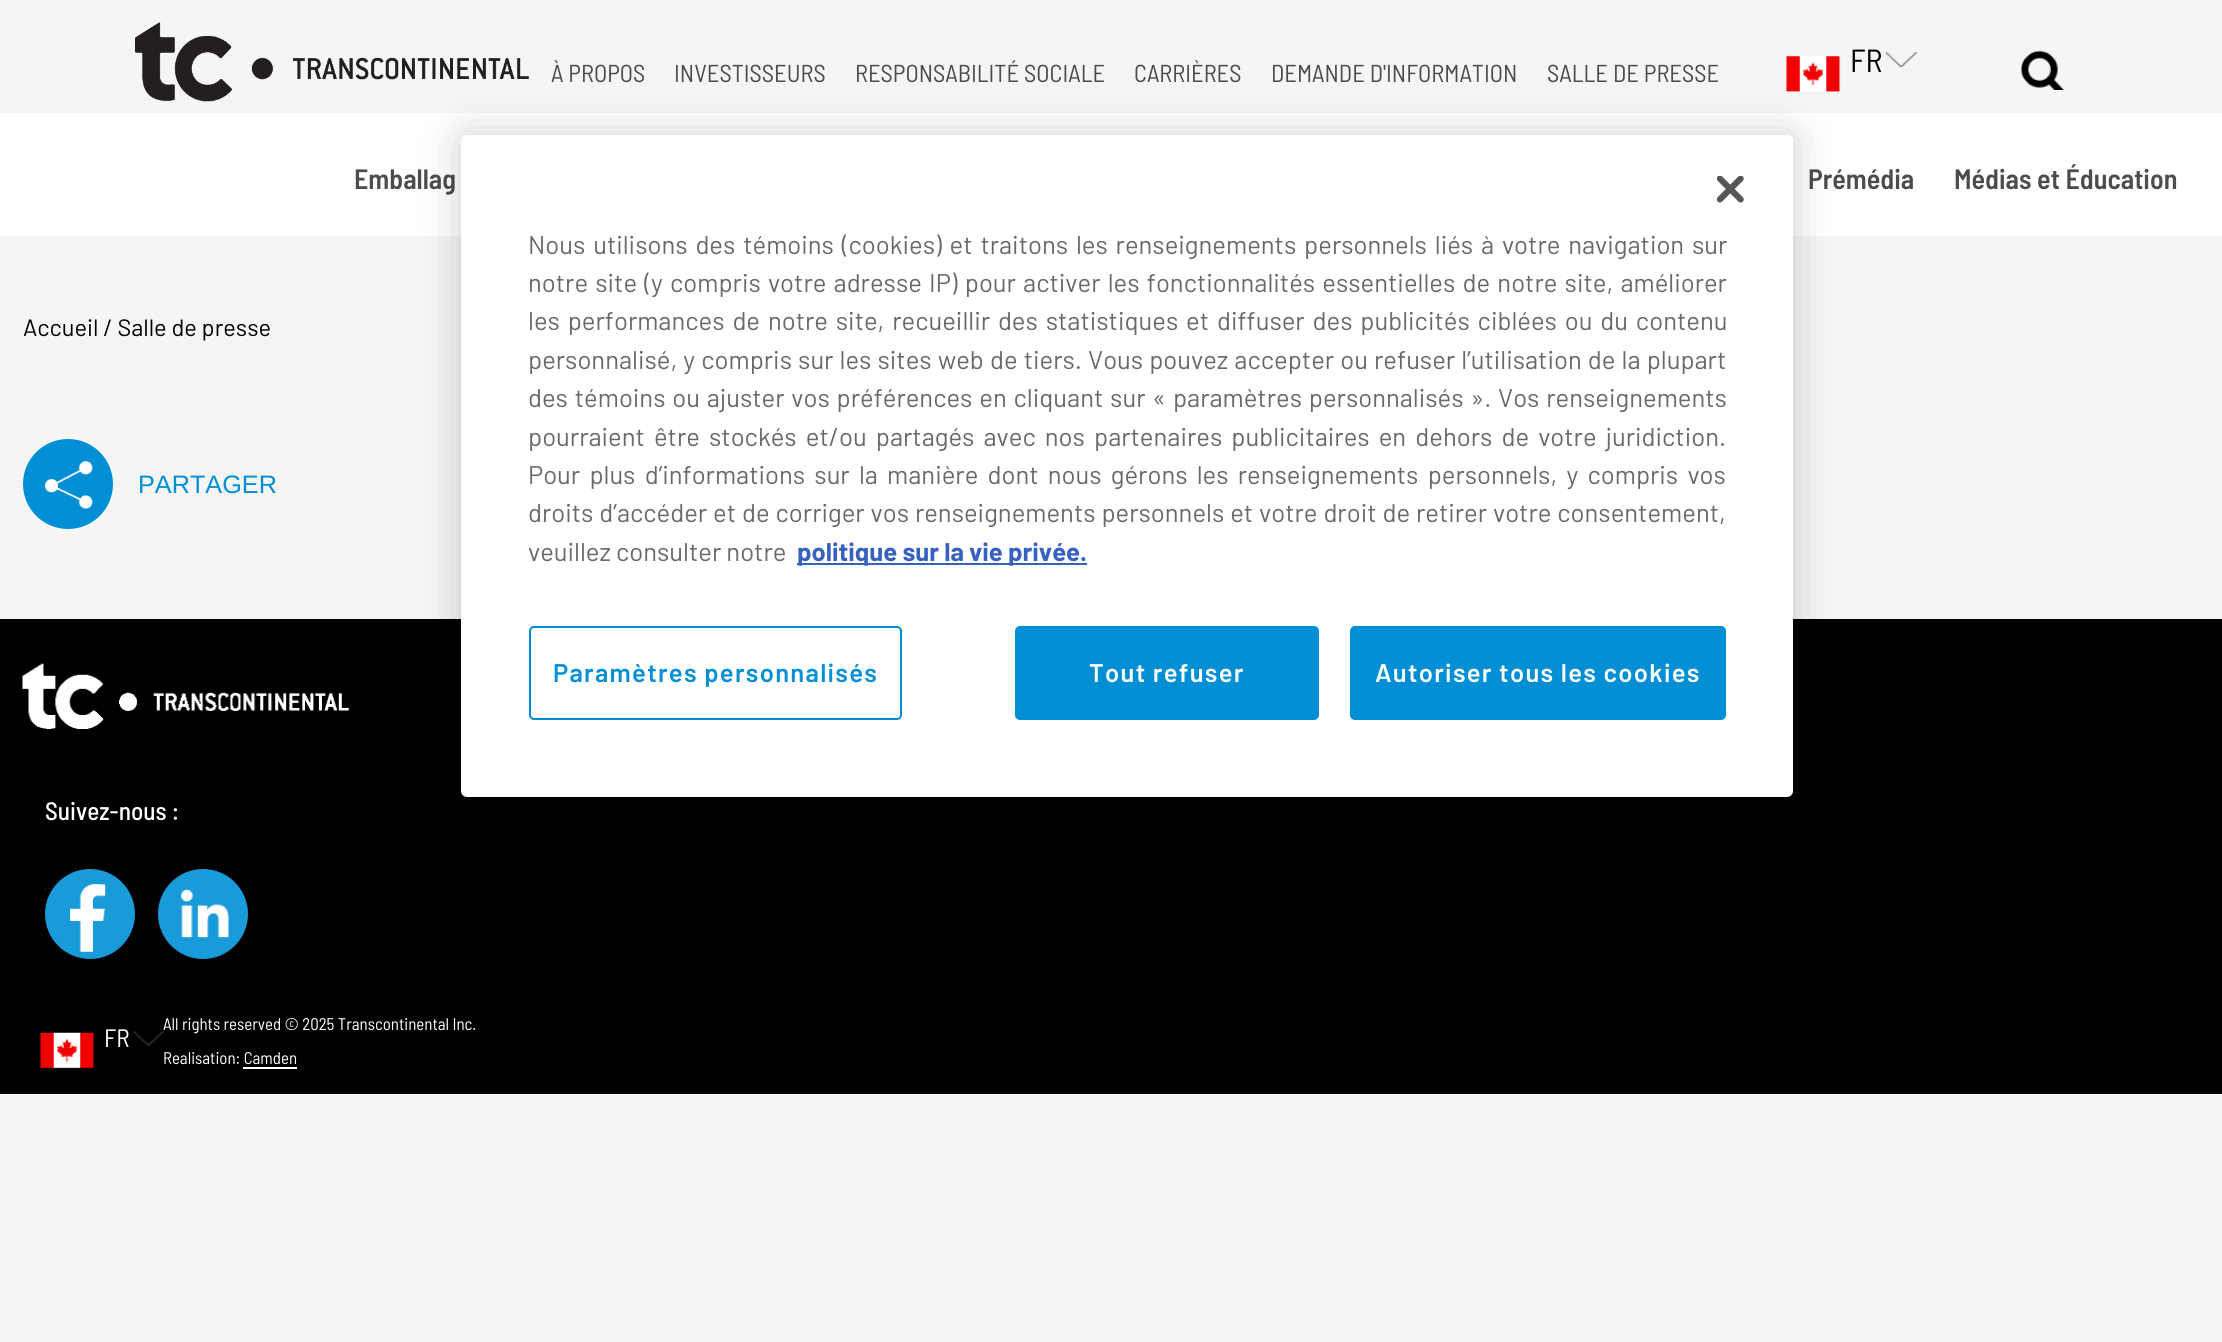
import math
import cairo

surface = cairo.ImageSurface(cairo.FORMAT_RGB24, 2222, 1342)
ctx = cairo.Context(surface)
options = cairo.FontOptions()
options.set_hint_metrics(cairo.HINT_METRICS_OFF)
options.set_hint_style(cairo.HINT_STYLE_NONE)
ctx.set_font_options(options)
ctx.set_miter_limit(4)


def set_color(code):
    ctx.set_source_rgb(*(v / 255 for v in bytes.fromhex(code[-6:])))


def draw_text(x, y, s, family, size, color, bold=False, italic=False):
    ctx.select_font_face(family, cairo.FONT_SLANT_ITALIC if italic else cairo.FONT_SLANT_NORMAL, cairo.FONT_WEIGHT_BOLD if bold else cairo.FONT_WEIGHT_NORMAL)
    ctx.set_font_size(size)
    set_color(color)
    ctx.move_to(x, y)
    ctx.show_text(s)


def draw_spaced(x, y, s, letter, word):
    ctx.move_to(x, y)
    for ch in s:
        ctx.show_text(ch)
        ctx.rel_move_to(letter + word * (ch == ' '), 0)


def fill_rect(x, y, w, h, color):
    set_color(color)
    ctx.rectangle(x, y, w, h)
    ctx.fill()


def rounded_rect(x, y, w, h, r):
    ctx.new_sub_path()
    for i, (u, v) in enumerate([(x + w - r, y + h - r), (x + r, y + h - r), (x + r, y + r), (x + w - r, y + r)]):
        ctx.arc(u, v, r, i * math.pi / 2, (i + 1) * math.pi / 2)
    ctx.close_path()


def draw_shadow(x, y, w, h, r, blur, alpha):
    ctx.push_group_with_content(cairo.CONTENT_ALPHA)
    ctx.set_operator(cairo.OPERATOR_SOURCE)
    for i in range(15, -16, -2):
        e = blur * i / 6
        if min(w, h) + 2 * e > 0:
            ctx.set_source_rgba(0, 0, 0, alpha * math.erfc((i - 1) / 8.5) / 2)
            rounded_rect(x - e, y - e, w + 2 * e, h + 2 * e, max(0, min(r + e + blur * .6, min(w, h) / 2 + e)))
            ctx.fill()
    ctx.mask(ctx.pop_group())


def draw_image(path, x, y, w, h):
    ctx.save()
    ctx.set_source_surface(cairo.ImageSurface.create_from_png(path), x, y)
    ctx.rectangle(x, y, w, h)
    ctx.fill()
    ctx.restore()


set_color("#f5f5f5")
ctx.paint()
fill_rect(0, 113, 2222, 123, "#ffffff")
draw_image("assets/img1.png", 135, 22, 394, 80)
draw_text(551, 82, "À PROPOS", "Barlow Semi Condensed", 24.5, "#4c4c4c")
draw_text(674, 82, "INVESTISSEURS", "Barlow Semi Condensed", 24.5, "#4c4c4c")
draw_text(855, 82, "RESPONSABILITÉ SOCIALE", "Barlow Semi Condensed", 24.5, "#4c4c4c")
draw_text(1134, 82, "CARRIÈRES", "Barlow Semi Condensed", 24.5, "#4c4c4c")
draw_text(1271, 82, "DEMANDE D'INFORMATION", "Barlow Semi Condensed", 24.5, "#4c4c4c")
draw_text(1547, 82, "SALLE DE PRESSE", "Barlow Semi Condensed", 24.5, "#4c4c4c")
draw_image("assets/img2.png", 1786, 56, 55, 36)
draw_image("assets/img3.png", 1886, 52, 31, 16)
draw_text(1850, 72, "FR", "Barlow Semi Condensed", 32, "#000000")
draw_image("assets/img4.png", 2020, 50, 45, 40)
draw_text(354, 189, "Emballag", "Barlow Semi Condensed SemiBold", 28, "#4c4c4c")
draw_text(1808, 189, "Prémédia", "Barlow Semi Condensed SemiBold", 28, "#4c4c4c")
draw_text(1954, 189, "Médias et Éducation", "Barlow Semi Condensed SemiBold", 28, "#4c4c4c")
draw_text(23, 336, "Accueil / Salle de presse", "Barlow", 23.6, "#000000")
set_color("#008fd5")
ctx.new_path()
ctx.arc(68, 484, 45, 0, 2 * math.pi)
ctx.fill()
draw_image("assets/img5.png", 45, 461, 48, 48)
draw_text(138, 493, "PARTAGER", "Liberation Sans", 25.25, "#008fd5")
fill_rect(0, 619, 2222, 475, "#000000")
draw_image("assets/img6.png", 22, 663, 327, 66)
draw_text(45, 820, "Suivez-nous :", "Barlow Semi Condensed Medium", 25.25, "#ffffff")
set_color("#199ad9")
ctx.new_path()
ctx.arc(90, 914, 45, 0, 2 * math.pi)
ctx.fill()
draw_image("assets/img7.png", 45, 884, 61, 68)
ctx.arc(203, 914, 45, 0, 2 * math.pi)
ctx.fill()
draw_image("assets/img8.png", 181, 889, 48, 49)
draw_image("assets/img9.png", 40, 1032, 55, 37)
draw_text(163, 1030, "All rights reserved © 2025 Transcontinental Inc.", "Barlow Semi Condensed", 16.9, "#ffffff")
draw_image("assets/img10.png", 133, 1031, 31, 15)
draw_text(104, 1047, "FR", "Barlow Semi Condensed", 25.25, "#ffffff")
draw_text(163, 1064, "Realisation: Camden", "Barlow Semi Condensed", 16.9, "#ffffff")
fill_rect(243, 1067, 54, 2, "#ffffff")
set_color("#000000")
draw_shadow(461, 135, 1332, 662, 6, 20, 0.2)
set_color("#ffffff")
rounded_rect(461, 135, 1332, 662, 6)
ctx.fill()
draw_image("assets/img11.png", 1717, 176, 27, 27)
ctx.select_font_face("Barlow")
ctx.set_font_size(25.6)
set_color("#696969")
draw_spaced(528, 254, "Nous utilisons des témoins (cookies) et traitons les renseignements personnels liés à votre navigation sur", 0, 2.75)
draw_spaced(528, 292, "notre site (y compris votre adresse IP) pour activer les fonctionnalités essentielles de notre site, améliorer", 0, 2.1)
draw_spaced(528, 330, "les performances de notre site, recueillir des statistiques et diffuser des publicités ciblées ou du contenu", 0, 2.75)
draw_spaced(528, 369, "personnalisé, y compris sur les sites web de tiers. Vous pouvez accepter ou refuser l’utilisation de la plupart", 0, 1)
draw_spaced(528, 407, "des témoins ou ajuster vos préférences en cliquant sur « paramètres personnalisés ». Vos renseignements", 0, 1.7)
draw_spaced(528, 446, "pourraient être stockés et/ou partagés avec nos partenaires publicitaires en dehors de votre juridiction.", 0, 4)
draw_spaced(528, 484, "Pour plus d’informations sur la manière dont nous gérons les renseignements personnels, y compris vos", 0, 4.1)
draw_spaced(528, 522, "droits d’accéder et de corriger vos renseignements personnels et votre droit de retirer votre consentement,", 0, 0.8)
draw_text(528, 561, "veuillez consulter notre", "Barlow", 25.6, "#696969")
fill_rect(797, 563, 290, 2, "#3860be")
draw_text(797, 561, "politique sur la vie privée.", "Barlow", 25.6, "#3860be", bold=True)
rounded_rect(530, 627, 371, 92, 4)
set_color("#008fd5")
ctx.stroke()
ctx.select_font_face("Barlow SemiBold")
draw_spaced(553, 682, "Paramètres personnalisés", 1.25, 0)
rounded_rect(1016, 627, 302, 92, 4)
ctx.fill_preserve()
ctx.stroke()
set_color("#ffffff")
draw_spaced(1089, 682, "Tout refuser", 1.25, 0)
set_color("#008fd5")
rounded_rect(1351, 627, 374, 92, 4)
ctx.fill_preserve()
ctx.stroke()
set_color("#ffffff")
draw_spaced(1375, 682, "Autoriser tous les cookies", 1.25, 0)
surface.write_to_png("output.png")
